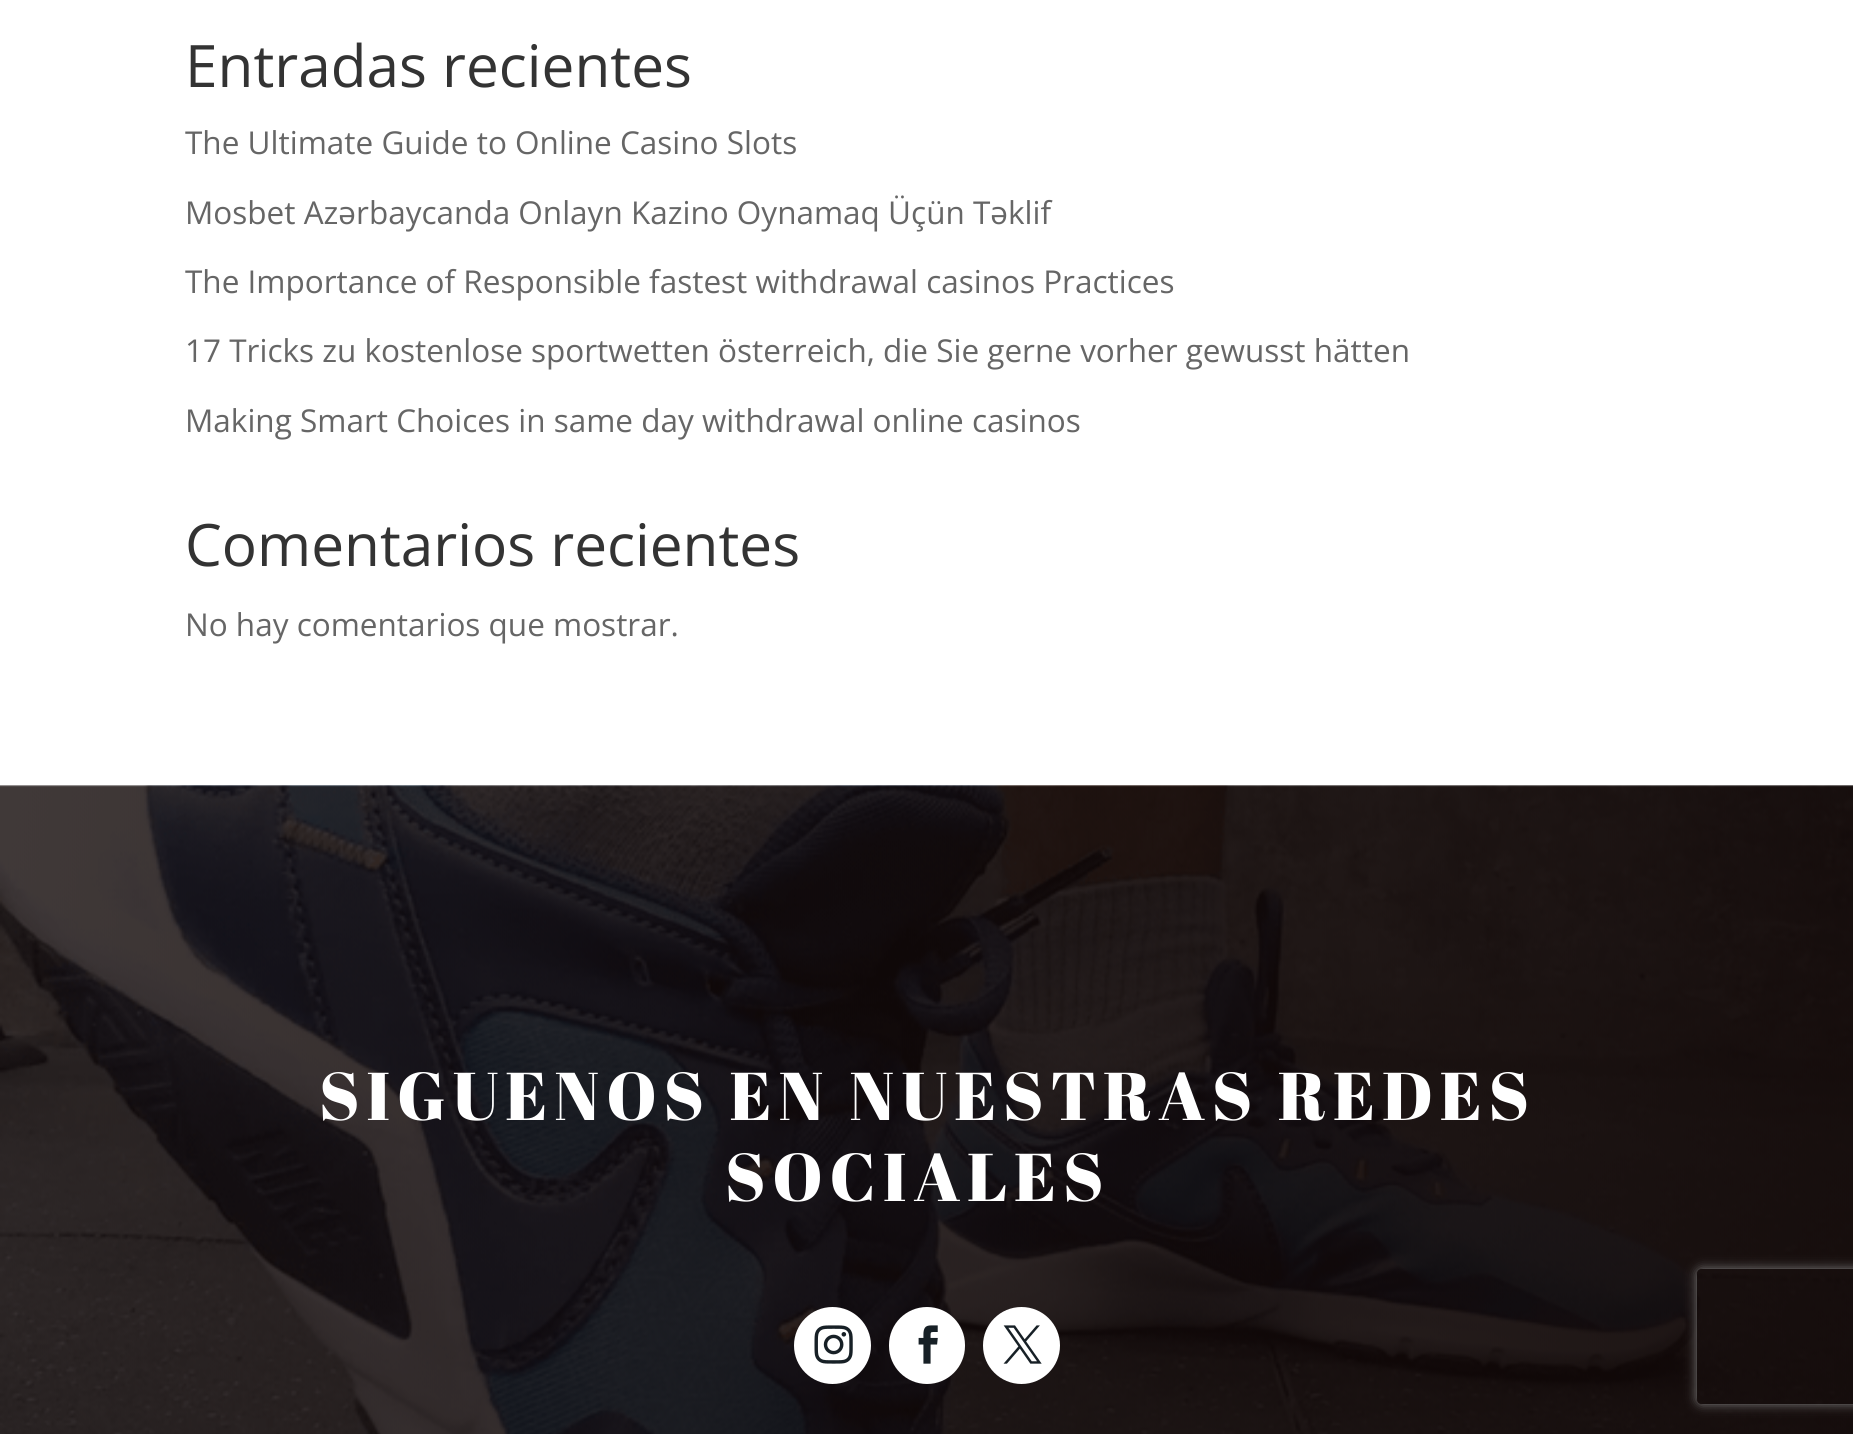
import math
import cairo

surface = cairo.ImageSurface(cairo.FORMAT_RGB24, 1853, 1434)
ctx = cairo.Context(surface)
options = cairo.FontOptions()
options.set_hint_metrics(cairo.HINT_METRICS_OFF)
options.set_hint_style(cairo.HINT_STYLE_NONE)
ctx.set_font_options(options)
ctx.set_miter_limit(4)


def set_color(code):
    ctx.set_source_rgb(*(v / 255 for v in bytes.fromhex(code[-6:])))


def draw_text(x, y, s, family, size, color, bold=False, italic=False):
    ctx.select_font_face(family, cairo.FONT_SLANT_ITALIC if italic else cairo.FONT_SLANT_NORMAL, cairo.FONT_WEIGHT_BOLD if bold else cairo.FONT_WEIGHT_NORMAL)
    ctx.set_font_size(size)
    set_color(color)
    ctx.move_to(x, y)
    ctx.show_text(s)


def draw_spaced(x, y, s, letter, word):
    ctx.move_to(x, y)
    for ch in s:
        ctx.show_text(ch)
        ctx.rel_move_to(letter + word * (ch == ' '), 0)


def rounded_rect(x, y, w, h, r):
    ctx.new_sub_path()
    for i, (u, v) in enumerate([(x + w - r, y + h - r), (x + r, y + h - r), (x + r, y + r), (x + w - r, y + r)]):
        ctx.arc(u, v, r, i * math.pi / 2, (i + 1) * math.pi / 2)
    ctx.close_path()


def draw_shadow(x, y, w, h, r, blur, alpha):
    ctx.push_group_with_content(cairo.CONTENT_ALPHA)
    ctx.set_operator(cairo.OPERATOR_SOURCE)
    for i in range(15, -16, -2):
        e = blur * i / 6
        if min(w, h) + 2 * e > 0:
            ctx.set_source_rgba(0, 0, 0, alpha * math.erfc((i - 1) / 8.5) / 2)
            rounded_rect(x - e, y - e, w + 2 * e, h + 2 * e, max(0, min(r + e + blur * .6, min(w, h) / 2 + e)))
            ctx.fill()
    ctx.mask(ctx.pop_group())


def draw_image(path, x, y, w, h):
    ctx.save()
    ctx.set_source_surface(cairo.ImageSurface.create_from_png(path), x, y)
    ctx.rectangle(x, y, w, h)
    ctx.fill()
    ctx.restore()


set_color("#ffffff")
ctx.paint()
draw_text(185, 87, "Entradas recientes", "Open Sans", 58.5, "#333333")
draw_text(185, 154, "The Ultimate Guide to Online Casino Slots", "Open Sans", 31.5, "#666666")
draw_text(185, 224, "Mosbet Azərbaycanda Onlayn Kazino Oynamaq Üçün Təklif", "Open Sans", 31.5, "#666666")
draw_text(185, 293, "The Importance of Responsible fastest withdrawal casinos Practices", "Open Sans", 31.5, "#666666")
draw_text(185, 362, "17 Tricks zu kostenlose sportwetten österreich, die Sie gerne vorher gewusst hätten", "Open Sans", 31.5, "#666666")
draw_text(185, 432, "Making Smart Choices in same day withdrawal online casinos", "Open Sans", 31.5, "#666666")
draw_text(185, 566, "Comentarios recientes", "Open Sans", 58.5, "#333333")
draw_text(185, 636, "No hay comentarios que mostrar.", "Open Sans", 31.5, "#666666")
draw_image("assets/img1.png", 0, 785, 1853, 649)
ctx.select_font_face("Abril Fatface")
ctx.set_font_size(67.5)
set_color("#ffffff")
draw_spaced(319, 1120, "SIGUENOS EN NUESTRAS REDES", 6.75, 0)
draw_spaced(725, 1201, "SOCIALES", 6.75, 0)
ctx.new_path()
ctx.arc(832.5, 1345.5, 38.5, 0, 2 * math.pi)
ctx.fill()
draw_image("assets/img2.png", 814, 1325, 39, 39)
rounded_rect(889, 1307, 76, 77, 38)
ctx.fill()
draw_image("assets/img3.png", 918, 1325, 20, 39)
ctx.arc(1021.5, 1345.5, 38.5, 0, 2 * math.pi)
ctx.fill()
draw_image("assets/img4.png", 1003, 1325, 39, 39)
ctx.save()
ctx.set_fill_rule(cairo.FILL_RULE_EVEN_ODD)
ctx.new_path()
ctx.move_to(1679, 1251)
ctx.line_to(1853, 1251)
ctx.line_to(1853, 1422)
ctx.line_to(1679, 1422)
ctx.close_path()
ctx.move_to(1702, 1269)
ctx.line_to(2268, 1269)
ctx.curve_to(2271, 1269, 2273, 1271, 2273, 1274)
ctx.line_to(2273, 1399)
ctx.curve_to(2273, 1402, 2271, 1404, 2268, 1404)
ctx.line_to(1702, 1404)
ctx.curve_to(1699, 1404, 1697, 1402, 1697, 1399)
ctx.line_to(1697, 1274)
ctx.curve_to(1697, 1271, 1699, 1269, 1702, 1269)
ctx.close_path()
ctx.clip()
set_color("#808080")
draw_shadow(1697, 1269, 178, 135, 5, 5.5, 1)
ctx.restore()
surface.write_to_png("output.png")
